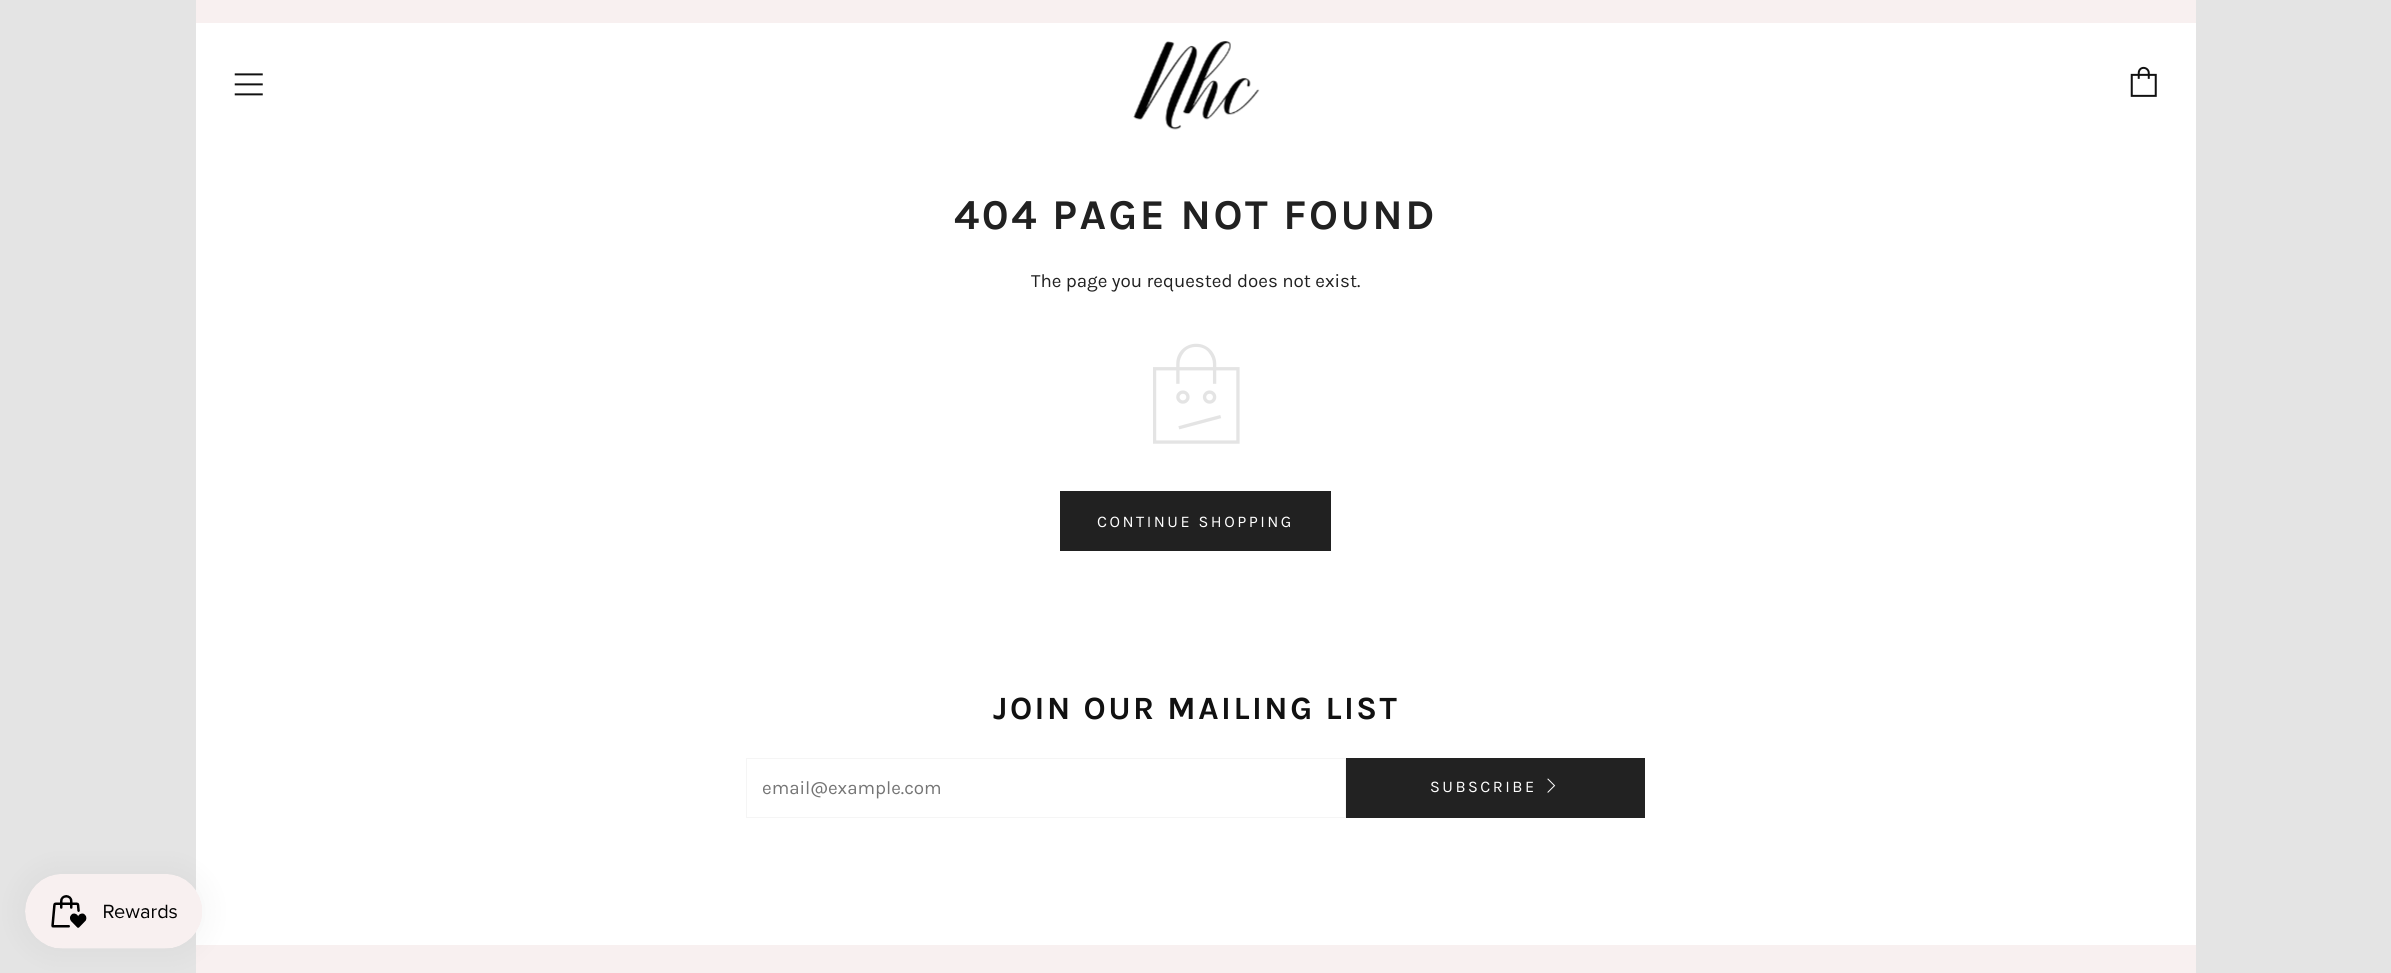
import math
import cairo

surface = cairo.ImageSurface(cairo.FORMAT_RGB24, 2391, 973)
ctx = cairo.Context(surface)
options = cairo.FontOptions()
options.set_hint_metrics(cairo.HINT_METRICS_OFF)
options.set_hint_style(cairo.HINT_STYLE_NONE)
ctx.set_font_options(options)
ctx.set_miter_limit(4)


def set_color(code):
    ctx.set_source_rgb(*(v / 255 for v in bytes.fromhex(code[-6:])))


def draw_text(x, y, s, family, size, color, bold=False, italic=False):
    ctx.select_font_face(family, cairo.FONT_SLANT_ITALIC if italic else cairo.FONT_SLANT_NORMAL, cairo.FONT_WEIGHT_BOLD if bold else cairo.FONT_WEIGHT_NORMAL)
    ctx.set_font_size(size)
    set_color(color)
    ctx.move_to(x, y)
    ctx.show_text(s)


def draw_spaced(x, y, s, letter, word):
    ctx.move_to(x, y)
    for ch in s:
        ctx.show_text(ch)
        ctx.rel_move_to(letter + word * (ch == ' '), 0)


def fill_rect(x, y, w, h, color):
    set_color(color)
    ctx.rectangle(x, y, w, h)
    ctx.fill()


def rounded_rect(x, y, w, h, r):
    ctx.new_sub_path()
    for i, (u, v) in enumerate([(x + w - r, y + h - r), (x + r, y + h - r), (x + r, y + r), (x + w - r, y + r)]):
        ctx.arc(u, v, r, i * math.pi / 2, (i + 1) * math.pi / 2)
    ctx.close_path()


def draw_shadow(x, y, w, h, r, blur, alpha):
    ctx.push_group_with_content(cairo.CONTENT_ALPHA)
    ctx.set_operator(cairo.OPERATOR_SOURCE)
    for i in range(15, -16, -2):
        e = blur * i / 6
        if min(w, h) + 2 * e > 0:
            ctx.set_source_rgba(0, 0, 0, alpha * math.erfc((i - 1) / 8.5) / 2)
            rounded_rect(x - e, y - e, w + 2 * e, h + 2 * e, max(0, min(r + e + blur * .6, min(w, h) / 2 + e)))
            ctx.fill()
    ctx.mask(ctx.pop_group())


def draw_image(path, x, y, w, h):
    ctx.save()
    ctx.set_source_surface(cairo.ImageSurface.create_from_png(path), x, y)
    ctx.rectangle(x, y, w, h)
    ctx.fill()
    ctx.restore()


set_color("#e4e4e4")
ctx.paint()
fill_rect(196, 23, 2000, 922, "#ffffff")
fill_rect(196, 0, 2000, 23, "#f8f0f0")
draw_image("assets/img1.png", 234, 73, 29, 23)
draw_image("assets/img2.png", 1133, 41, 127, 89)
draw_image("assets/img3.png", 2130, 66, 27, 31)
ctx.select_font_face("Karla", cairo.FONT_SLANT_NORMAL, cairo.FONT_WEIGHT_BOLD)
ctx.set_font_size(42.5)
set_color("#212121")
draw_spaced(954, 229, "404 PAGE NOT FOUND", 2.5, 0)
draw_text(1031, 287, "The page you requested does not exist.", "Karla", 18.75, "#212121")
draw_image("assets/img4.png", 1153, 343, 87, 101)
fill_rect(1060, 491, 271, 60, "#212121")
ctx.set_font_size(16.25)
set_color("#ffffff")
draw_spaced(1097, 527, "CONTINUE SHOPPING", 2.5, 0)
ctx.select_font_face("Karla", cairo.FONT_SLANT_NORMAL, cairo.FONT_WEIGHT_BOLD)
ctx.set_font_size(32.5)
set_color("#111111")
draw_spaced(993, 719, "JOIN OUR MAILING LIST", 2.5, 0)
ctx.rectangle(746.5, 758.5, 599, 59)
set_color("#f5f5f5")
ctx.set_line_width(1)
ctx.stroke()
ctx.save()
ctx.rectangle(763, 776, 567, 23)
ctx.clip()
draw_text(762, 794, "email@example.com", "Karla", 18.75, "#757575")
ctx.restore()
fill_rect(1346, 758, 299, 60, "#222222")
ctx.select_font_face("Karla")
ctx.set_font_size(16.25)
set_color("#ffffff")
draw_spaced(1430, 792, "SUBSCRIBE", 2.5, 0)
draw_image("assets/img5.png", 1547, 778, 9, 15)
fill_rect(196, 945, 2000, 28, "#f8f0f0")
set_color("#000000")
draw_shadow(25, 874, 178, 75, 37.5, 15.5, 0.05)
draw_image("assets/img6.png", 25, 874, 177, 75)
surface.write_to_png("output.png")
